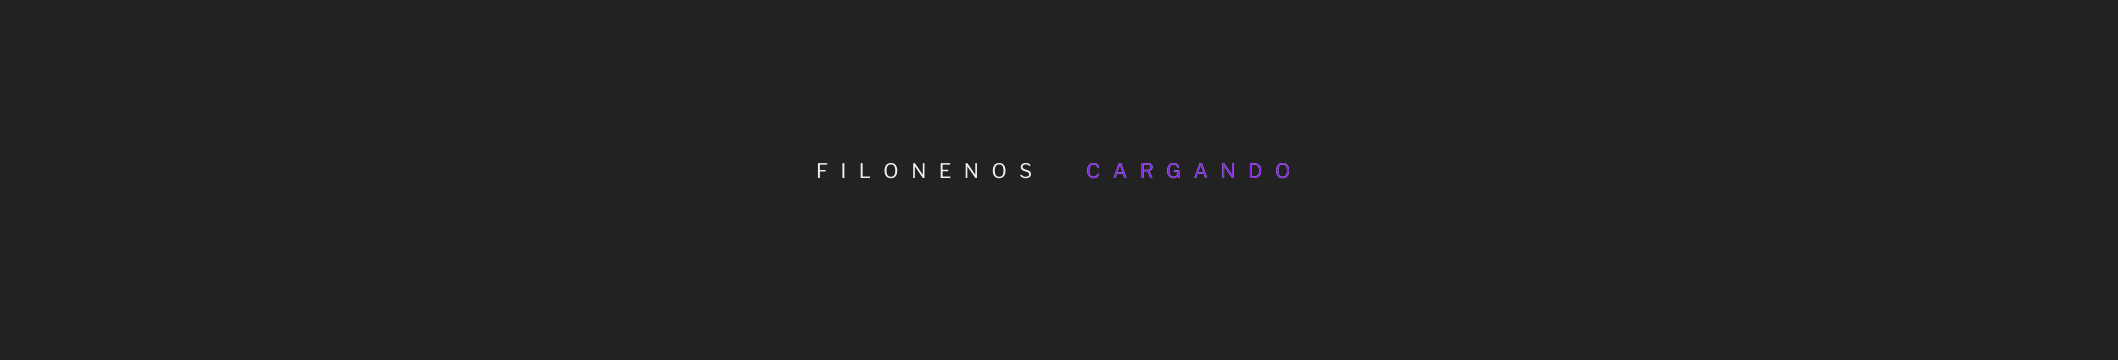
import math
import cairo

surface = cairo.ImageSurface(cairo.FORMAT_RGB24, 2118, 360)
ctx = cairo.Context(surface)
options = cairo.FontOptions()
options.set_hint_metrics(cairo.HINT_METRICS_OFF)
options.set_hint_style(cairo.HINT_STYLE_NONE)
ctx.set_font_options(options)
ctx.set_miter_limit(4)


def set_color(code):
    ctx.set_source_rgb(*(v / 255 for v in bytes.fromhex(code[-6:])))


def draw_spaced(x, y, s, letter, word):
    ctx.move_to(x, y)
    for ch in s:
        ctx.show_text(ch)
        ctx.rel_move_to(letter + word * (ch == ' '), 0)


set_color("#222222")
ctx.paint()
ctx.select_font_face("Libre Franklin")
ctx.set_font_size(20)
set_color("#f1f1f1")
draw_spaced(816, 178, "FILONENOS", 12.5, 0)
draw_spaced(1086, 178, "CARGANDO", 12.5, 0)
set_color("#8224e3")
draw_spaced(1086, 178, "CARGANDO", 12.5, 0)
surface.write_to_png("output.png")
